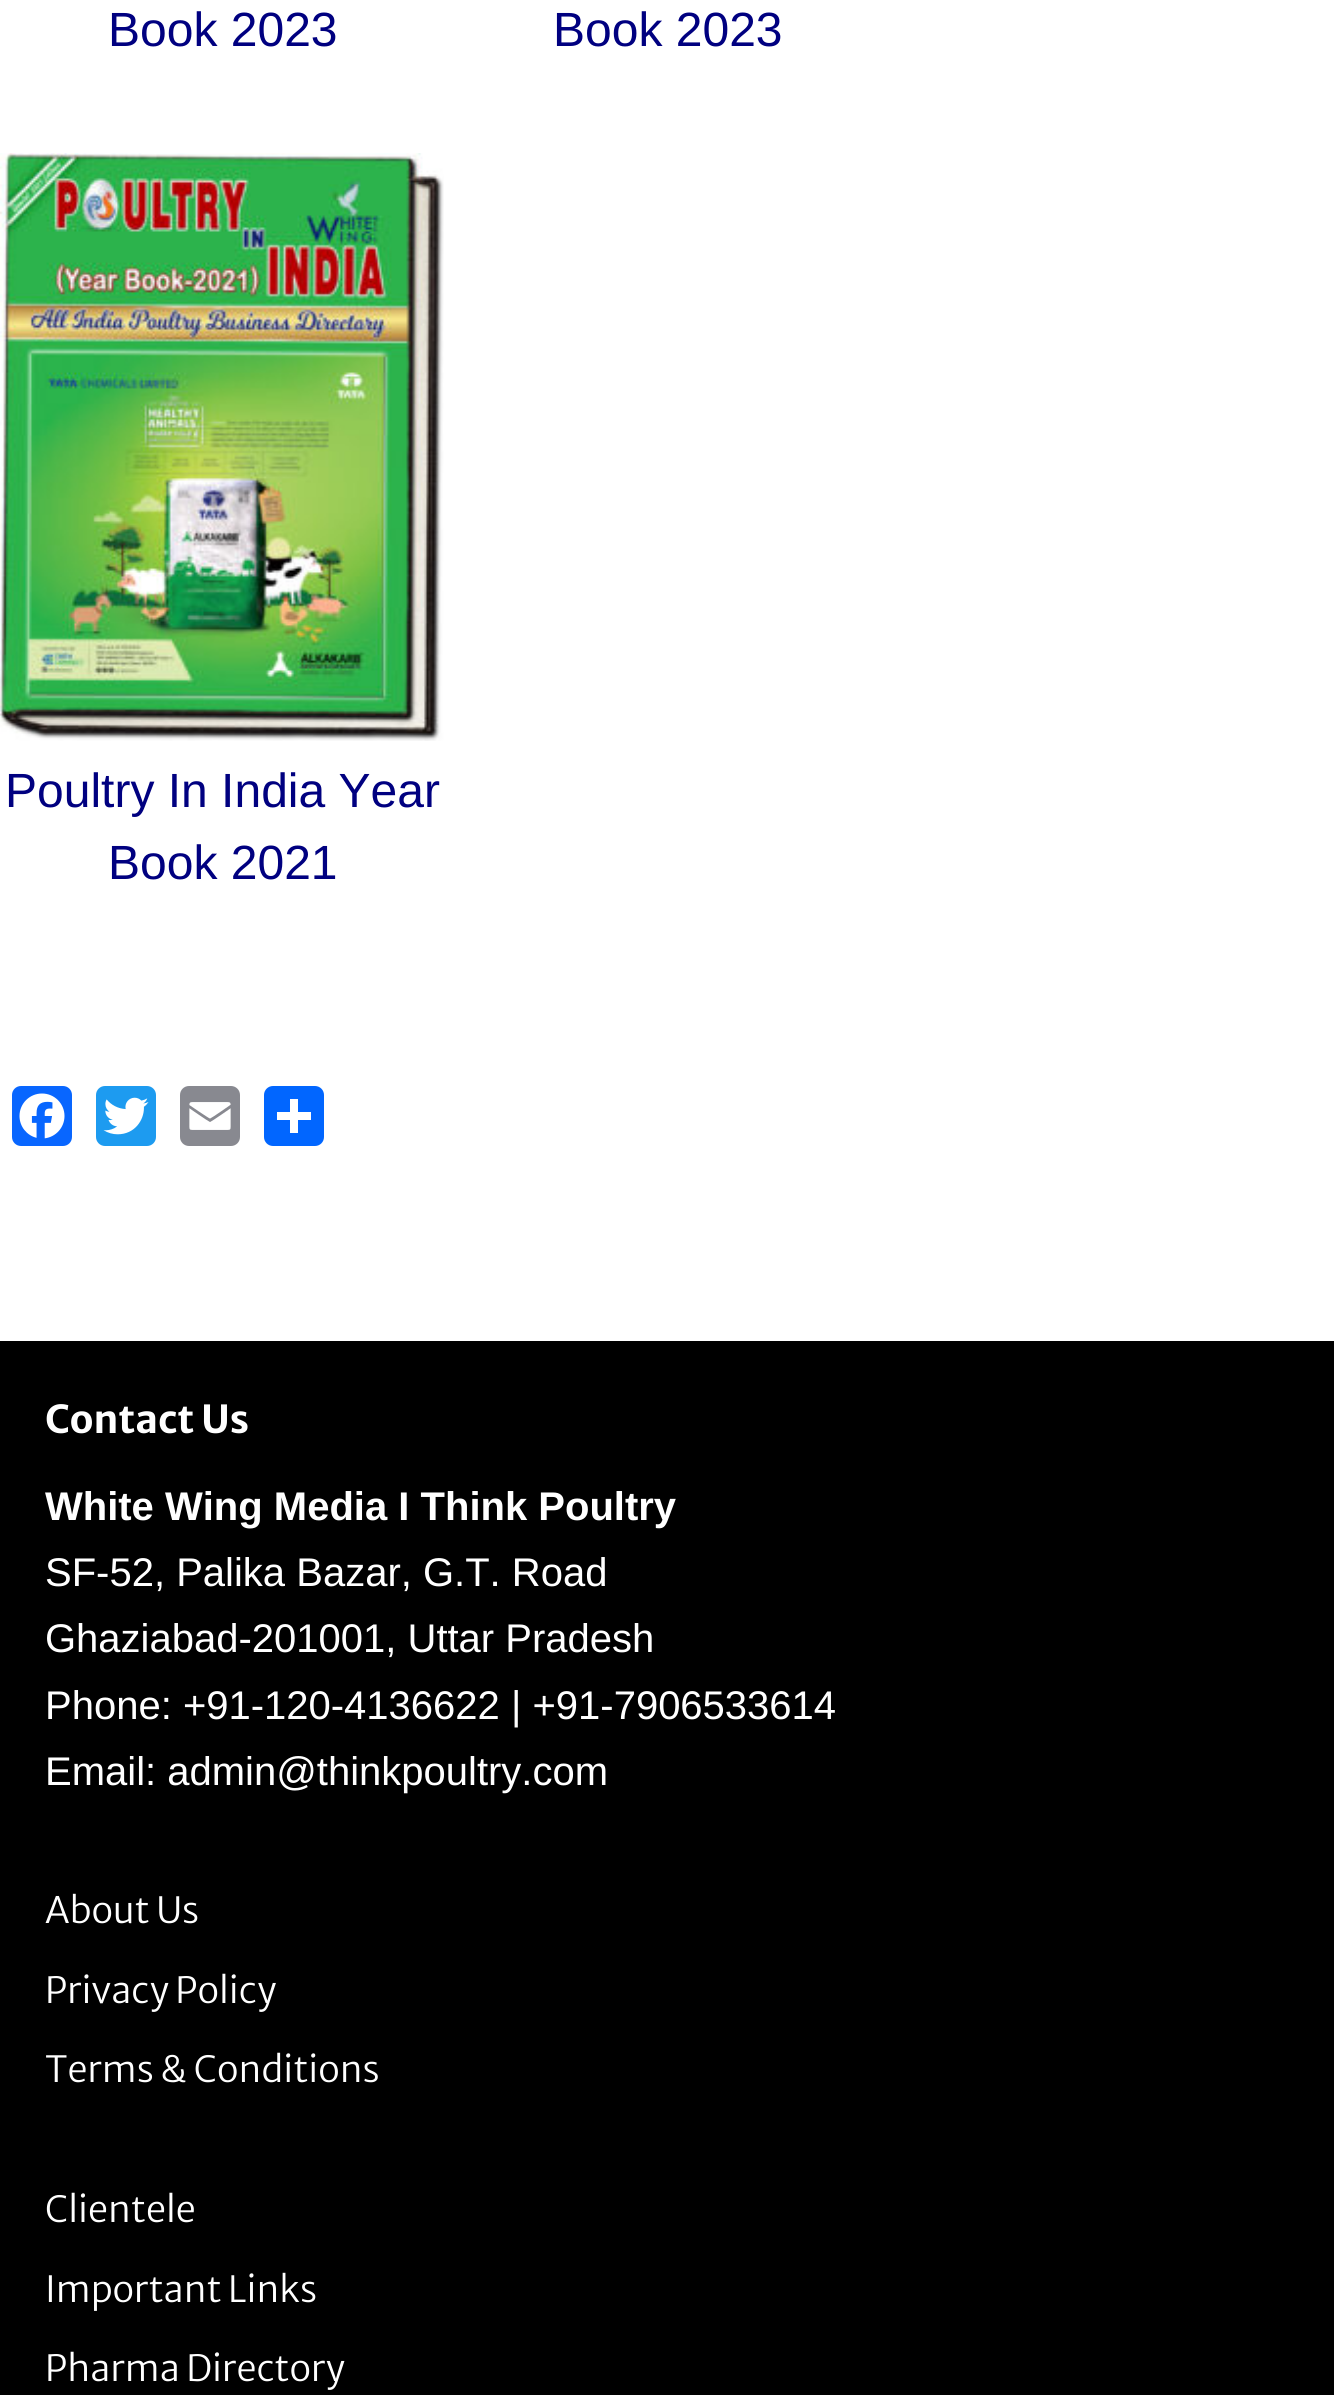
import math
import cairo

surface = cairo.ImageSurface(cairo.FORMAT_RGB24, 1334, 2395)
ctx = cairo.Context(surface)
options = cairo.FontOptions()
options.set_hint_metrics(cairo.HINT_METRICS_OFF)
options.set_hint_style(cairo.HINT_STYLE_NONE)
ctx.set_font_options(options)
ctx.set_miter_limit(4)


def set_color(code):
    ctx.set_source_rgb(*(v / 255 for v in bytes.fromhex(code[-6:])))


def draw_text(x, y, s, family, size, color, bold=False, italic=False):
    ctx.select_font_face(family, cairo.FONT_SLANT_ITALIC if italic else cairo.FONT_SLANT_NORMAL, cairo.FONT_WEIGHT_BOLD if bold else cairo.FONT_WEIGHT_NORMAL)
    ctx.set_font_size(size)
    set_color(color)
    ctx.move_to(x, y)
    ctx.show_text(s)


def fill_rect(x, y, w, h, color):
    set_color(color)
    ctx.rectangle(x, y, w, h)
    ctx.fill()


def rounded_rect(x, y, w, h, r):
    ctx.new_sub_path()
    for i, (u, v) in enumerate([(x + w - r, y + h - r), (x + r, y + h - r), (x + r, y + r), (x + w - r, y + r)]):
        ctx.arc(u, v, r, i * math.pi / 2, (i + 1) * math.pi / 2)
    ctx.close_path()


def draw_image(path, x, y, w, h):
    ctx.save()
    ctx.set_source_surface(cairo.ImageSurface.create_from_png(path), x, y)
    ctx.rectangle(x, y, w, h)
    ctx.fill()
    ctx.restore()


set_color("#ffffff")
ctx.paint()
draw_text(108, 46, "Book 2023", "Liberation Sans", 48, "#000080")
draw_text(553, 46, "Book 2023", "Liberation Sans", 48, "#000080")
draw_image("assets/img1.png", 0, 153, 444, 588)
draw_text(5, 807, "Poultry In India Year", "Liberation Sans", 48, "#000080")
draw_text(108, 879, "Book 2021", "Liberation Sans", 48, "#000080")
set_color("#0866ff")
rounded_rect(12, 1086, 60, 60, 9)
ctx.fill()
draw_image("assets/img2.png", 19, 1093, 46, 46)
set_color("#1d9bf0")
rounded_rect(96, 1086, 60, 60, 9)
ctx.fill()
draw_image("assets/img3.png", 103, 1097, 46, 38)
set_color("#888990")
rounded_rect(180, 1086, 60, 60, 9)
ctx.fill()
draw_image("assets/img4.png", 189, 1102, 42, 28)
set_color("#0166ff")
rounded_rect(264, 1086, 60, 60, 9)
ctx.fill()
fill_rect(290, 1099, 8, 34, "#ffffff")
fill_rect(277, 1112, 34, 8, "#ffffff")
fill_rect(0, 1341, 1334, 1054, "#000000")
draw_text(45, 1433, "Contact Us", "Merriweather Sans", 38.5, "#ffffff", bold=True)
draw_text(45, 1520, "White Wing Media I Think Poultry", "Liberation Sans", 40, "#ffffff", bold=True)
draw_text(45, 1586, "SF-52, Palika Bazar, G.T. Road", "Liberation Sans", 40, "#ffffff")
draw_text(45, 1652, "Ghaziabad-201001, Uttar Pradesh", "Liberation Sans", 40, "#ffffff")
draw_text(45, 1719, "Phone: +91-120-4136622 | +91-7906533614", "Liberation Sans", 40, "#ffffff")
draw_text(45, 1785, "Email: admin@thinkpoultry.com", "Liberation Sans", 40, "#ffffff")
draw_text(45, 1923, "About Us", "Merriweather Sans Light", 36, "#ffffff")
draw_text(45, 2003, "Privacy Policy", "Merriweather Sans Light", 36, "#ffffff")
draw_text(45, 2082, "Terms & Conditions", "Merriweather Sans Light", 36, "#ffffff")
draw_text(45, 2222, "Clientele", "Merriweather Sans Light", 36, "#ffffff")
draw_text(45, 2302, "Important Links", "Merriweather Sans Light", 36, "#ffffff")
draw_text(45, 2381, "Pharma Directory", "Merriweather Sans Light", 36, "#ffffff")
surface.write_to_png("output.png")
